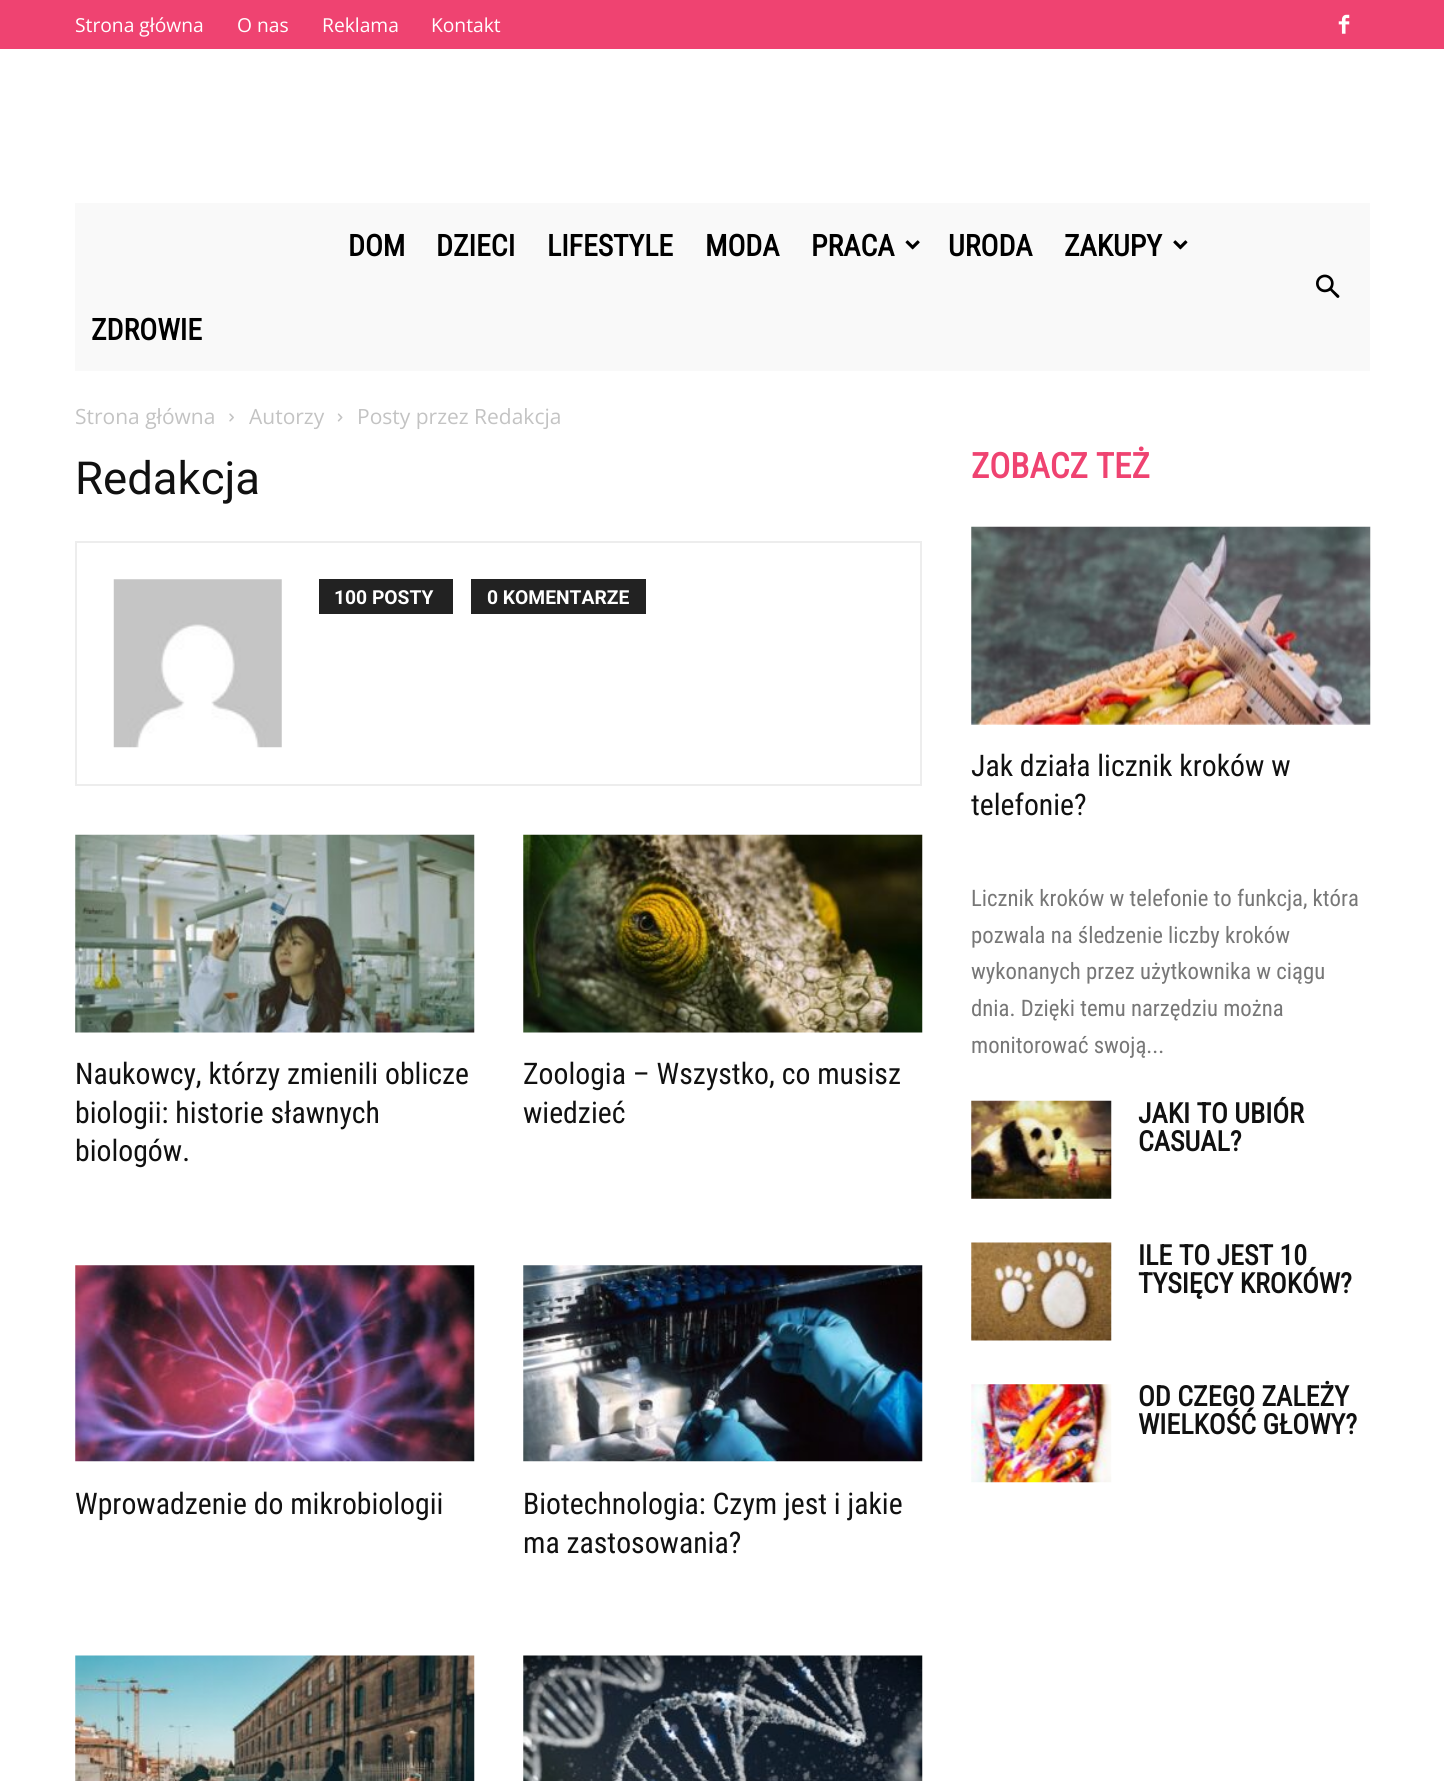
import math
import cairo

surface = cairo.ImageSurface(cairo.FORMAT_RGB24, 1444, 1781)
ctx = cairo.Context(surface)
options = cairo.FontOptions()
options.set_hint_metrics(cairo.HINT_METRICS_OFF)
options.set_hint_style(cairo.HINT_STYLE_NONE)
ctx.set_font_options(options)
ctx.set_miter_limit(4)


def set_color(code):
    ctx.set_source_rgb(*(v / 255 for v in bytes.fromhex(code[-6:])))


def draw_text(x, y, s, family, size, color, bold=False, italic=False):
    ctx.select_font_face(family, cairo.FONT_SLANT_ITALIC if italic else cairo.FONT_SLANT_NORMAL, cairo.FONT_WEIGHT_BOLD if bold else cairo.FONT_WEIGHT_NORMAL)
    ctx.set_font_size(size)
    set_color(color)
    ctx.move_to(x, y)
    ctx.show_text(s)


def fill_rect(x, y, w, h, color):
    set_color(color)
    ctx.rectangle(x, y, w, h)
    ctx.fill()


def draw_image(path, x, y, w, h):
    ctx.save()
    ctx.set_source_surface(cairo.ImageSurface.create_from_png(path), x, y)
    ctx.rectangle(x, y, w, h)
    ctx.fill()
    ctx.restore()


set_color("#ffffff")
ctx.paint()
fill_rect(0, 0, 1444, 49, "#ef4371")
draw_text(75, 32, "Strona główna", "Open Sans", 19.25, "#ffffff")
draw_text(237, 32, "O nas", "Open Sans", 19.25, "#ffffff")
draw_text(322, 32, "Reklama", "Open Sans", 19.25, "#ffffff")
draw_text(431, 32, "Kontakt", "Open Sans", 19.25, "#ffffff")
draw_image("assets/img1.png", 1338, 14, 12, 20)
fill_rect(75, 203, 1295, 168, "#f9f9f9")
draw_text(348, 256, "DOM", "Roboto Condensed", 29.75, "#000000", bold=True)
draw_text(436, 256, "DZIECI", "Roboto Condensed", 29.75, "#000000", bold=True)
draw_text(547, 256, "LIFESTYLE", "Roboto Condensed", 29.75, "#000000", bold=True)
draw_text(705, 256, "MODA", "Roboto Condensed", 29.75, "#000000", bold=True)
draw_text(811, 256, "PRACA", "Roboto Condensed", 29.75, "#000000", bold=True)
draw_image("assets/img2.png", 905, 240, 15, 10)
draw_text(948, 256, "URODA", "Roboto Condensed", 29.75, "#000000", bold=True)
draw_text(1064, 256, "ZAKUPY", "Roboto Condensed", 29.75, "#000000", bold=True)
draw_image("assets/img3.png", 1173, 240, 15, 10)
draw_text(91, 340, "ZDROWIE", "Roboto Condensed", 29.75, "#000000", bold=True)
draw_image("assets/img4.png", 1316, 274, 24, 24)
draw_text(75, 424, "Strona główna", "Open Sans", 21, "#c3c3c3")
draw_image("assets/img5.png", 229, 413, 5, 9)
draw_text(249, 424, "Autorzy", "Open Sans", 21, "#c3c3c3")
draw_image("assets/img6.png", 337, 413, 6, 9)
draw_text(357, 424, "Posty przez Redakcja", "Open Sans", 21, "#c3c3c3")
draw_text(75, 494, "Redakcja", "Roboto", 45.5, "#111111")
ctx.rectangle(76, 542, 845, 243)
set_color("#ededed")
ctx.stroke()
draw_image("assets/img7.png", 113, 579, 169, 169)
fill_rect(319, 579, 134, 35, "#222222")
draw_text(334, 604, "100 POSTY", "Roboto", 19.25, "#ffffff", bold=True)
fill_rect(471, 579, 175, 35, "#222222")
draw_text(487, 604, "0 KOMENTARZE", "Roboto", 19.25, "#ffffff", bold=True)
draw_image("assets/img8.png", 75, 834, 400, 199)
draw_text(75, 1084, "Naukowcy, którzy zmienili oblicze", "Roboto Condensed", 29.75, "#111111")
draw_text(75, 1123, "biologii: historie sławnych", "Roboto Condensed", 29.75, "#111111")
draw_text(75, 1161, "biologów.", "Roboto Condensed", 29.75, "#111111")
draw_image("assets/img9.png", 523, 834, 400, 199)
draw_text(523, 1084, "Zoologia – Wszystko, co musisz", "Roboto Condensed", 29.75, "#111111")
draw_text(523, 1123, "wiedzieć", "Roboto Condensed", 29.75, "#111111")
draw_image("assets/img10.png", 75, 1265, 400, 197)
draw_text(75, 1514, "Wprowadzenie do mikrobiologii", "Roboto Condensed", 29.75, "#111111")
draw_image("assets/img11.png", 523, 1265, 400, 197)
draw_text(523, 1514, "Biotechnologia: Czym jest i jakie", "Roboto Condensed", 29.75, "#111111")
draw_text(523, 1553, "ma zastosowania?", "Roboto Condensed", 29.75, "#111111")
draw_image("assets/img12.png", 75, 1655, 400, 126)
draw_image("assets/img13.png", 523, 1655, 400, 126)
draw_text(971, 478, "ZOBACZ TEŻ", "Roboto Condensed", 35, "#ef4371", bold=True)
draw_image("assets/img14.png", 971, 526, 400, 199)
draw_text(971, 776, "Jak działa licznik kroków w", "Roboto Condensed", 29.75, "#111111")
draw_text(971, 815, "telefonie?", "Roboto Condensed", 29.75, "#111111")
draw_text(971, 906, "Licznik kroków w telefonie to funkcja, która", "Roboto Condensed", 22.75, "#777777")
draw_text(971, 943, "pozwala na śledzenie liczby kroków", "Roboto Condensed", 22.75, "#777777")
draw_text(971, 979, "wykonanych przez użytkownika w ciągu", "Roboto Condensed", 22.75, "#777777")
draw_text(971, 1016, "dnia. Dzięki temu narzędziu można", "Roboto Condensed", 22.75, "#777777")
draw_text(971, 1053, "monitorować swoją...", "Roboto Condensed", 22.75, "#777777")
draw_image("assets/img15.png", 971, 1100, 141, 99)
draw_text(1138, 1123, "JAKI TO UBIÓR", "Roboto Condensed", 28, "#111111", bold=True)
draw_text(1138, 1151, "CASUAL?", "Roboto Condensed", 28, "#111111", bold=True)
draw_image("assets/img16.png", 971, 1242, 141, 99)
draw_text(1138, 1265, "ILE TO JEST 10", "Roboto Condensed", 28, "#111111", bold=True)
draw_text(1138, 1293, "TYSIĘCY KROKÓW?", "Roboto Condensed", 28, "#111111", bold=True)
draw_image("assets/img17.png", 971, 1384, 141, 99)
draw_text(1138, 1406, "OD CZEGO ZALEŻY", "Roboto Condensed", 28, "#111111", bold=True)
draw_text(1138, 1434, "WIELKOŚĆ GŁOWY?", "Roboto Condensed", 28, "#111111", bold=True)
surface.write_to_png("output.png")
